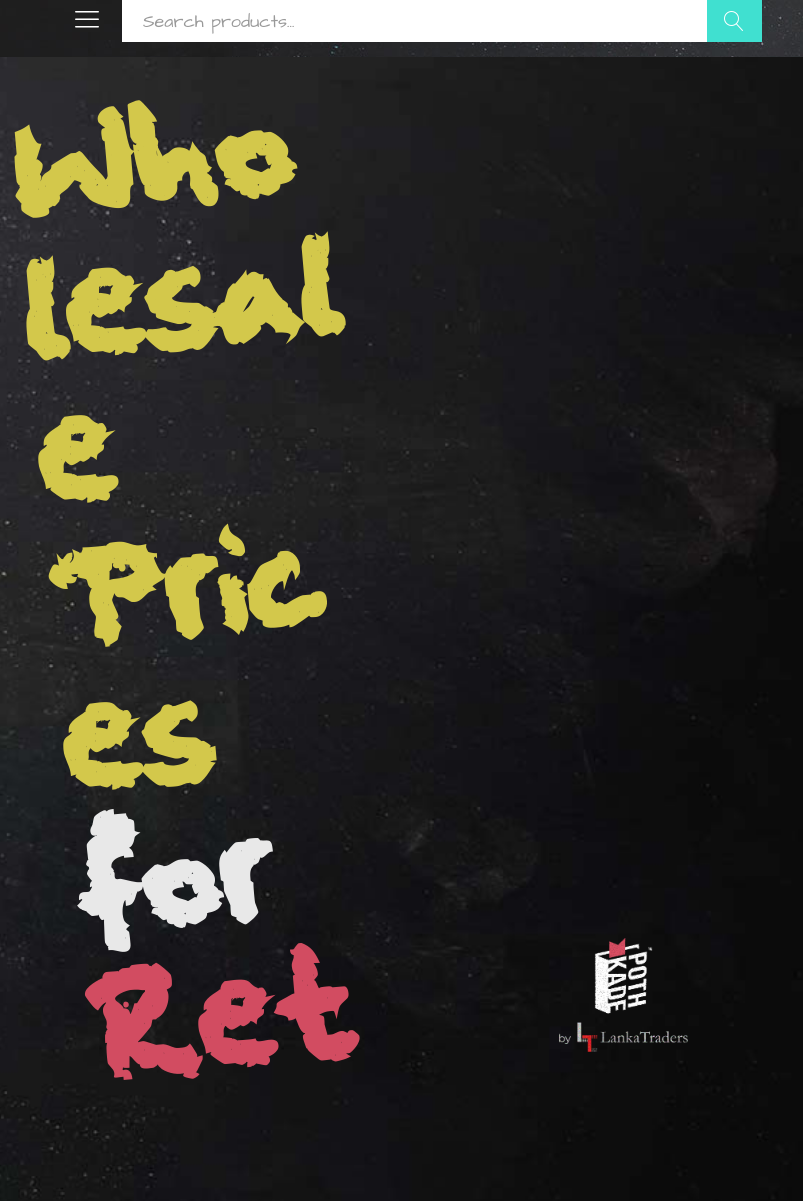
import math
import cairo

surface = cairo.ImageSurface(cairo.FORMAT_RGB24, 803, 1201)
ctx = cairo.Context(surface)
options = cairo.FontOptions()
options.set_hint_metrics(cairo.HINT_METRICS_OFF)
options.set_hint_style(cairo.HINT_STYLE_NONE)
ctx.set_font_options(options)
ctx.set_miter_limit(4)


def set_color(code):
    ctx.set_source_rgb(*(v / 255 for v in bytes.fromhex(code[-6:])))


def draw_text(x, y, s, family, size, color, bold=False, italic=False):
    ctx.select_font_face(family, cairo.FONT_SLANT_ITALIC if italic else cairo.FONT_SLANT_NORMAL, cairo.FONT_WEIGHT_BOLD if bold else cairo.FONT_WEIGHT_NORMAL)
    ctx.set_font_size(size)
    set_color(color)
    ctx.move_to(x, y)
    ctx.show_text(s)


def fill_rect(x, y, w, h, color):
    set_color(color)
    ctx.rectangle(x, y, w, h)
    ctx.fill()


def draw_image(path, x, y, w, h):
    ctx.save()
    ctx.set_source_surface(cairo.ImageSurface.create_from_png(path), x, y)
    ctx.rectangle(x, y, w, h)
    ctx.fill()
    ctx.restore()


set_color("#ffffff")
ctx.paint()
draw_image("assets/img1.png", 0, 0, 803, 57)
draw_image("assets/img2.png", 75, 11, 24, 17)
fill_rect(122, 0, 585, 42, "#ffffff")
draw_text(143, 27, "Search products...", "Architects Daughter", 18, "#999999")
fill_rect(707, 0, 55, 42, "#40e0d0")
draw_image("assets/img3.png", 724, 11, 19, 20)
draw_image("assets/img4.png", 0, 57, 803, 1144)
ctx.save()
ctx.translate(16, 217)
ctx.rotate(-5 * math.pi / 180)
draw_text(0, 0, "Who", "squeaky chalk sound", 120, "#d3c84b", bold=True)
ctx.restore()
ctx.save()
ctx.translate(28, 360)
ctx.rotate(-5 * math.pi / 180)
draw_text(0, 0, "lesal", "squeaky chalk sound", 120, "#d3c84b", bold=True)
ctx.restore()
ctx.save()
ctx.translate(41, 504)
ctx.rotate(-5 * math.pi / 180)
draw_text(0, 0, "e", "squeaky chalk sound", 120, "#d3c84b", bold=True)
ctx.restore()
ctx.save()
ctx.translate(54, 647)
ctx.rotate(-5 * math.pi / 180)
draw_text(0, 0, "Pric", "squeaky chalk sound", 120, "#d3c84b", bold=True)
ctx.restore()
ctx.save()
ctx.translate(66, 791)
ctx.rotate(-5 * math.pi / 180)
draw_text(0, 0, "es", "squeaky chalk sound", 120, "#d3c84b", bold=True)
ctx.restore()
ctx.save()
ctx.translate(79, 934)
ctx.rotate(-5 * math.pi / 180)
draw_text(0, 0, "for", "squeaky chalk sound", 120, "#e8e8e8", bold=True)
ctx.restore()
ctx.save()
ctx.translate(91, 1078)
ctx.rotate(-5 * math.pi / 180)
draw_text(0, 0, "Ret", "squeaky chalk sound", 120, "#d24c61", bold=True)
ctx.restore()
draw_image("assets/img5.png", 559, 938, 129, 114)
surface.write_to_png("output.png")
